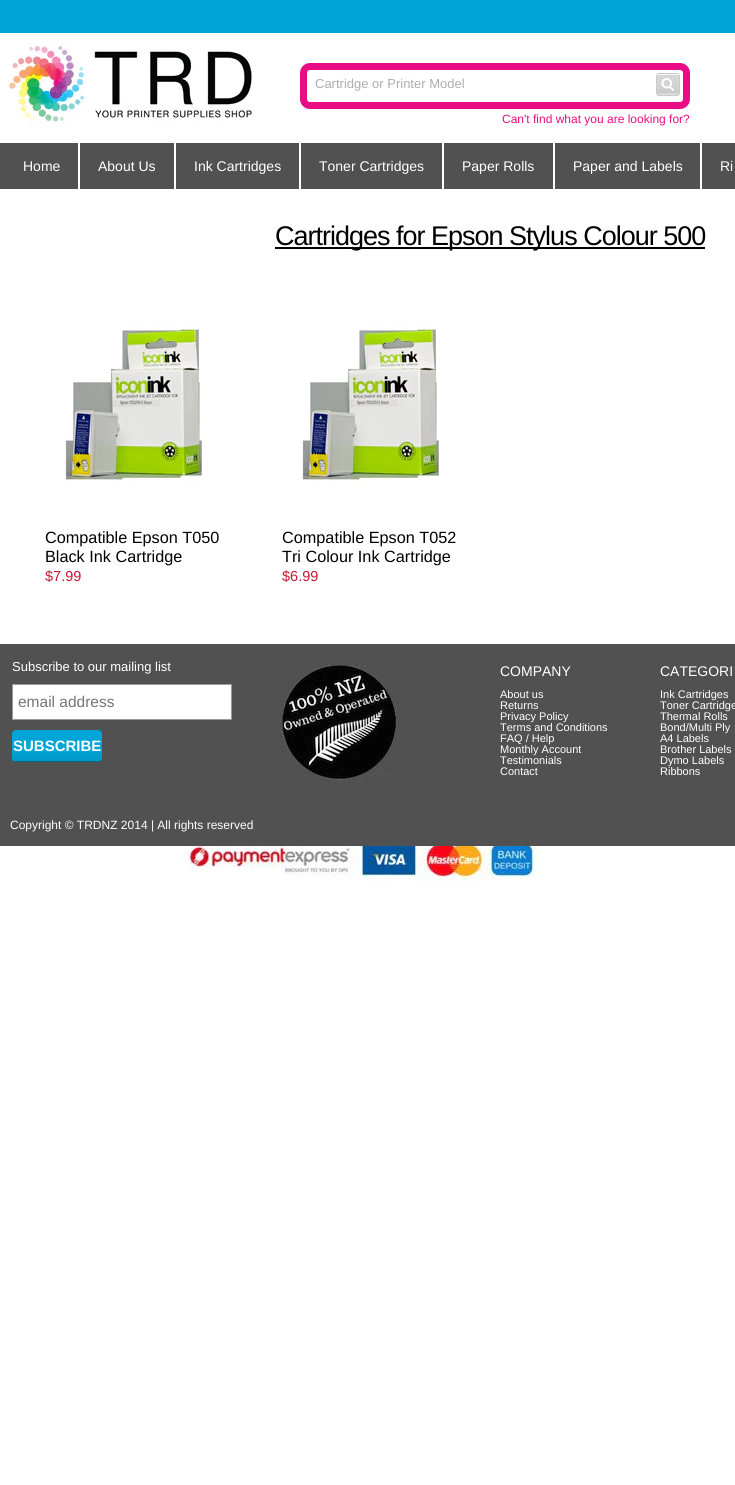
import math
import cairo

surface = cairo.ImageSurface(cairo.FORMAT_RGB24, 735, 1485)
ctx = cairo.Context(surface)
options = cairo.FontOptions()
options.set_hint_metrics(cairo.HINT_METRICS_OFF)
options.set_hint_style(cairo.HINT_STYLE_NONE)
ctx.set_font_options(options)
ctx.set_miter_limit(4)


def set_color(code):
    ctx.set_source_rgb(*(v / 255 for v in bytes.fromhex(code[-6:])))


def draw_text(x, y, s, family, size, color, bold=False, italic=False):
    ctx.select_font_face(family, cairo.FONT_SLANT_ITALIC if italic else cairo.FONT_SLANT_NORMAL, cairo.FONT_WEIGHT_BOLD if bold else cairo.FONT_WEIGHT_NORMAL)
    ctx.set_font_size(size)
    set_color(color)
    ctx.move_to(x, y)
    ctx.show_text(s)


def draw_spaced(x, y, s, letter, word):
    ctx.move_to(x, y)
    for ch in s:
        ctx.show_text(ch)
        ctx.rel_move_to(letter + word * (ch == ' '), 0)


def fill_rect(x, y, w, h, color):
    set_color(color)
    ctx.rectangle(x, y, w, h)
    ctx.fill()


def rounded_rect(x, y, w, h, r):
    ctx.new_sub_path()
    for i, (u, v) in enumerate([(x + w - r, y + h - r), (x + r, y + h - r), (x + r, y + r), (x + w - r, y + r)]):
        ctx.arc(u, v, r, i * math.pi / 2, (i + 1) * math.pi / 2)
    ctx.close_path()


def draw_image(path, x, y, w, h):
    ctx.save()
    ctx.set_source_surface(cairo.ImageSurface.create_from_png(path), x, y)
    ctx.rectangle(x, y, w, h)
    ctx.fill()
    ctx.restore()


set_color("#ffffff")
ctx.paint()
fill_rect(0, 0, 735, 33, "#00a4d6")
draw_image("assets/img1.png", 7, 43, 248, 80)
rounded_rect(303.5, 66.5, 383, 39, 6.5)
set_color("#ea0c85")
ctx.set_line_width(7)
ctx.stroke()
draw_text(315, 88, "Cartridge or Printer Model", "Liberation Sans", 13, "#aeadad")
draw_image("assets/img2.png", 656, 73, 24, 23)
draw_text(502, 123, "Can't find what you are looking for?", "Liberation Sans", 12, "#ea0c85")
fill_rect(0, 143, 735, 46, "#525151")
fill_rect(78, 143, 2, 46, "#ffffff")
draw_text(23, 171, "Home", "Liberation Sans", 14, "#ffffff")
fill_rect(174, 143, 2, 46, "#ffffff")
draw_text(98, 171, "About Us", "Liberation Sans", 14, "#ffffff")
fill_rect(299, 143, 2, 46, "#ffffff")
draw_text(194, 171, "Ink Cartridges", "Liberation Sans", 14, "#ffffff")
fill_rect(442, 143, 2, 46, "#ffffff")
draw_text(319, 171, "Toner Cartridges", "Liberation Sans", 14, "#ffffff")
fill_rect(553, 143, 2, 46, "#ffffff")
draw_text(462, 171, "Paper Rolls", "Liberation Sans", 14, "#ffffff")
fill_rect(700, 143, 2, 46, "#ffffff")
draw_text(573, 171, "Paper and Labels", "Liberation Sans", 14, "#ffffff")
draw_text(720, 171, "Ri", "Liberation Sans", 14, "#ffffff")
fill_rect(275, 247, 430, 2, "#000000")
ctx.set_font_size(27)
draw_spaced(275, 245, "Cartridges for Epson Stylus Colour 500", -1, 0)
draw_image("assets/img3.png", 64, 324, 139, 160)
draw_text(45, 543, "Compatible Epson T050", "Liberation Sans", 16.25, "#000000")
draw_text(45, 562, "Black Ink Cartridge", "Liberation Sans", 16.25, "#000000")
draw_text(45, 581, "$7.99", "Liberation Sans", 14.5, "#c51731")
draw_image("assets/img4.png", 301, 324, 139, 160)
draw_text(282, 543, "Compatible Epson T052", "Liberation Sans", 16.25, "#000000")
draw_text(282, 562, "Tri Colour Ink Cartridge", "Liberation Sans", 16.25, "#000000")
draw_text(282, 581, "$6.99", "Liberation Sans", 14.5, "#c51731")
fill_rect(0, 644, 735, 202, "#525151")
draw_text(12, 671, "Subscribe to our mailing list", "Liberation Sans", 13, "#ffffff")
ctx.rectangle(12.5, 684.5, 219, 35)
ctx.fill_preserve()
set_color("#999999")
ctx.set_line_width(1)
ctx.stroke()
draw_text(18, 707, "email address", "Liberation Sans", 15.5, "#757575")
set_color("#00a4d6")
rounded_rect(12, 730, 90, 32, 4)
ctx.fill()
draw_image("assets/img5.png", 12, 752, 90, 10)
draw_text(13, 751, "SUBSCRIBE", "Liberation Sans", 15, "#ffffff", bold=True)
draw_image("assets/img6.png", 280, 664, 117, 117)
draw_text(500, 676, "COMPANY", "Liberation Sans", 14, "#ffffff")
draw_text(500, 698, "About us", "Liberation Sans", 11, "#ffffff")
draw_text(500, 709, "Returns", "Liberation Sans", 11, "#ffffff")
draw_text(500, 720, "Privacy Policy", "Liberation Sans", 11, "#ffffff")
draw_text(500, 731, "Terms and Conditions", "Liberation Sans", 11, "#ffffff")
draw_text(500, 742, "FAQ / Help", "Liberation Sans", 11, "#ffffff")
draw_text(500, 753, "Monthly Account", "Liberation Sans", 11, "#ffffff")
draw_text(500, 764, "Testimonials", "Liberation Sans", 11, "#ffffff")
draw_text(500, 775, "Contact", "Liberation Sans", 11, "#ffffff")
draw_text(660, 676, "CATEGORI", "Liberation Sans", 14, "#ffffff")
draw_text(660, 698, "Ink Cartridges", "Liberation Sans", 11, "#ffffff")
draw_text(660, 709, "Toner Cartridge", "Liberation Sans", 11, "#ffffff")
draw_text(660, 720, "Thermal Rolls", "Liberation Sans", 11, "#ffffff")
draw_text(660, 731, "Bond/Multi Ply", "Liberation Sans", 11, "#ffffff")
draw_text(660, 742, "A4 Labels", "Liberation Sans", 11, "#ffffff")
draw_text(660, 753, "Brother Labels", "Liberation Sans", 11, "#ffffff")
draw_text(660, 764, "Dymo Labels", "Liberation Sans", 11, "#ffffff")
draw_text(660, 775, "Ribbons", "Liberation Sans", 11, "#ffffff")
draw_text(10, 829, "Copyright © TRDNZ 2014 | All rights reserved", "Liberation Sans", 12, "#ffffff")
draw_image("assets/img7.png", 143, 846, 400, 35)
surface.write_to_png("output.png")
